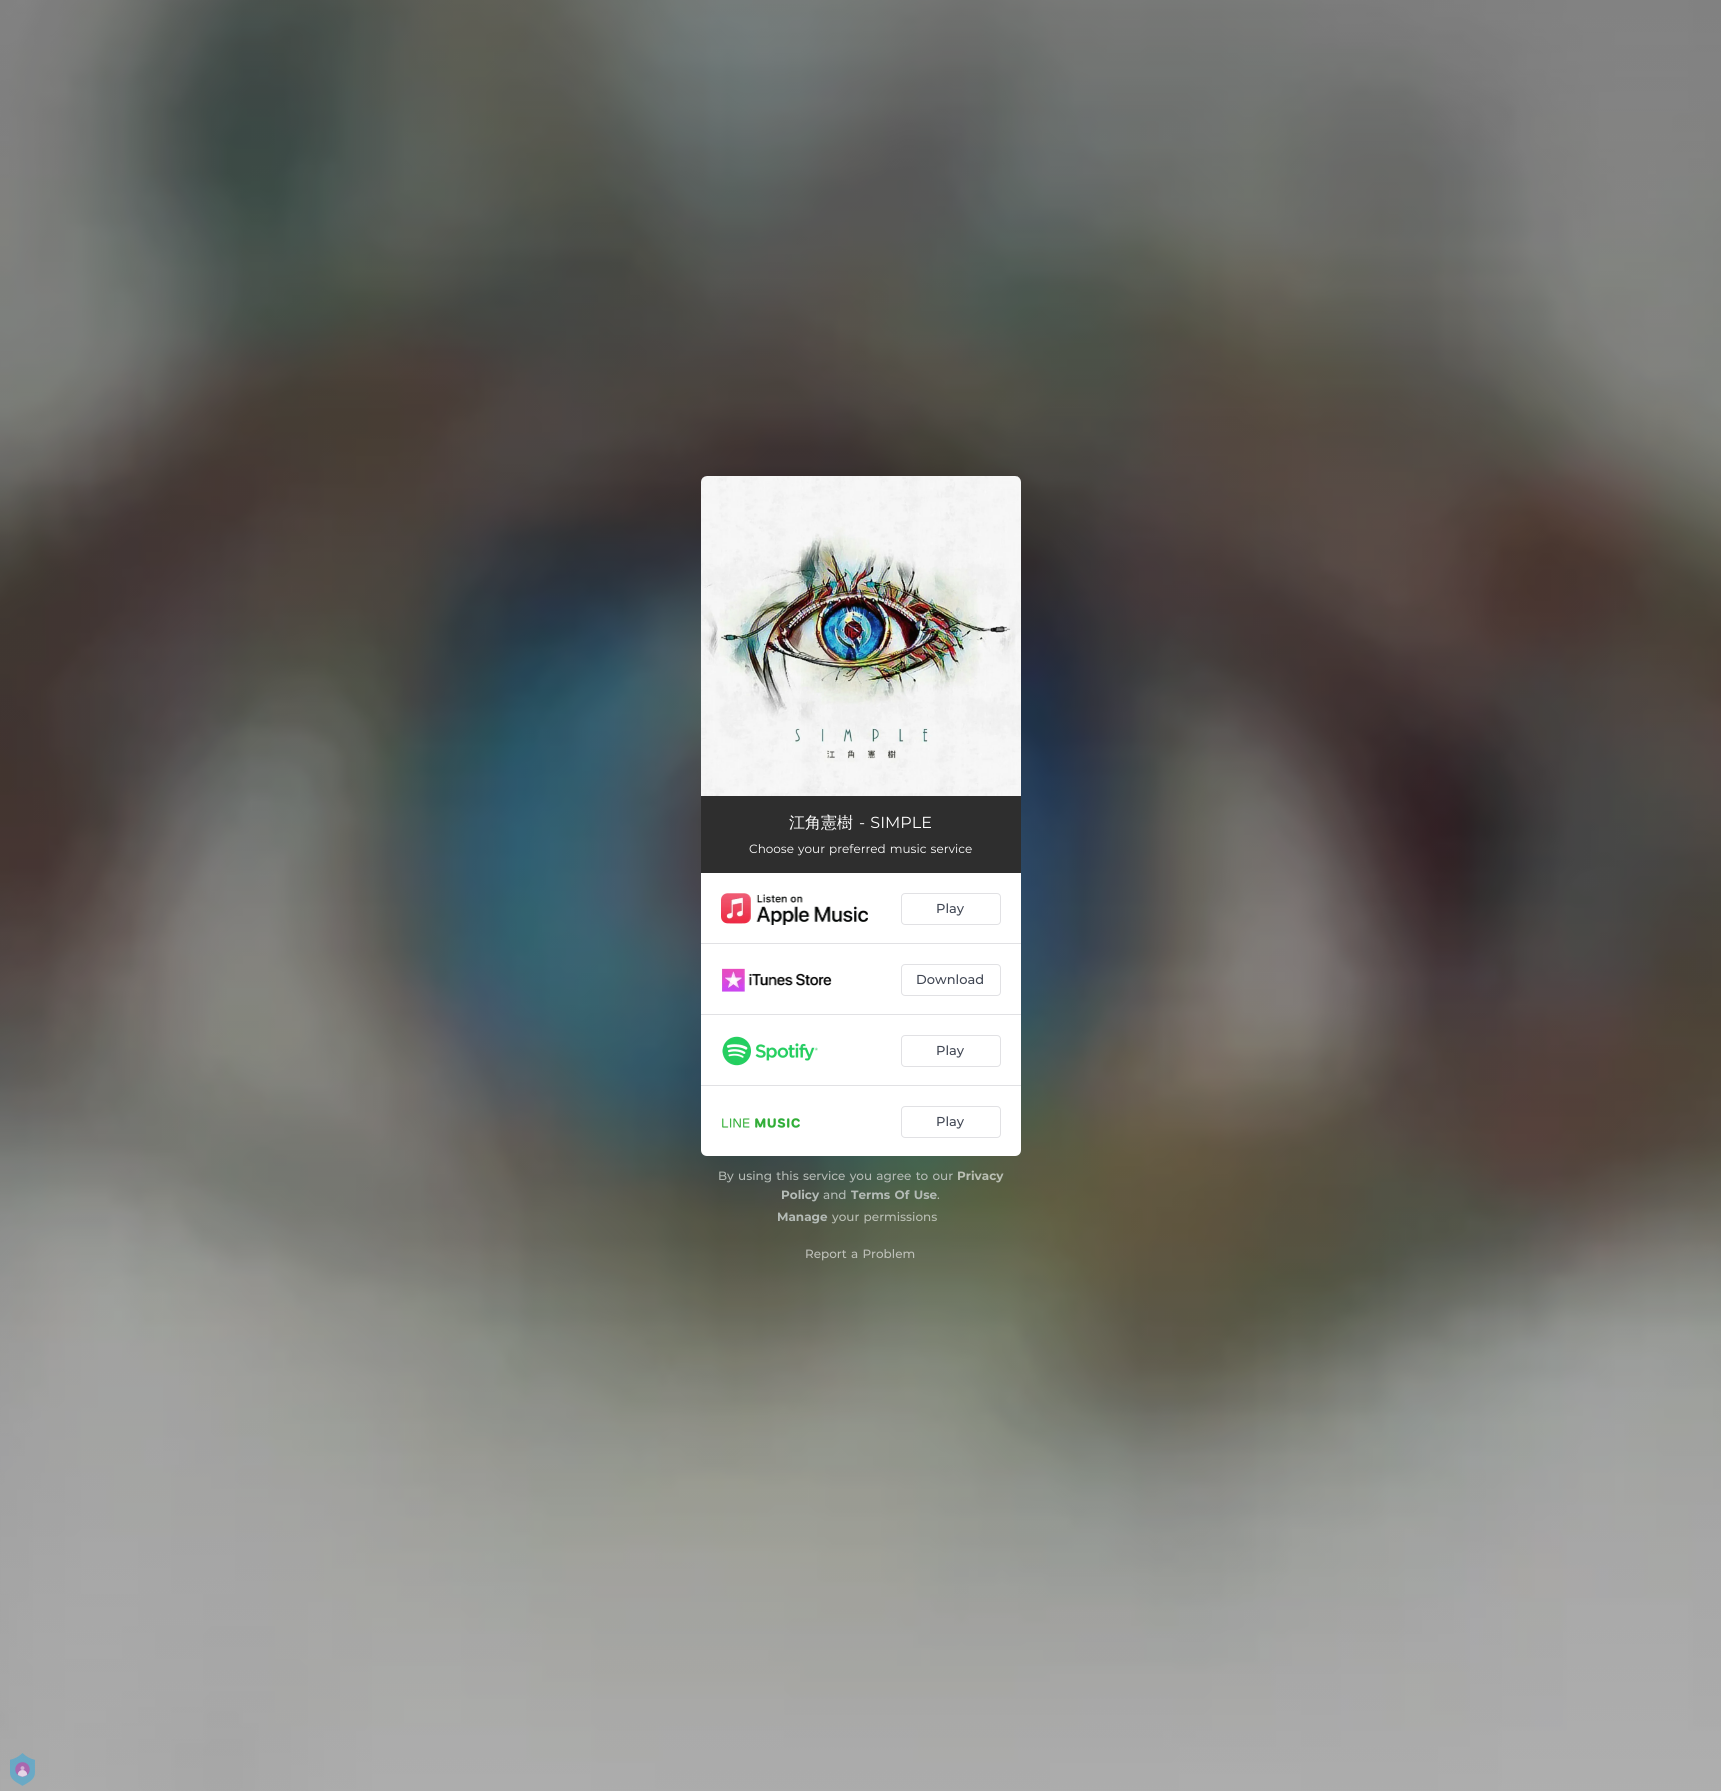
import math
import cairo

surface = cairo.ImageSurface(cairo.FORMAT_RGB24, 1721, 1791)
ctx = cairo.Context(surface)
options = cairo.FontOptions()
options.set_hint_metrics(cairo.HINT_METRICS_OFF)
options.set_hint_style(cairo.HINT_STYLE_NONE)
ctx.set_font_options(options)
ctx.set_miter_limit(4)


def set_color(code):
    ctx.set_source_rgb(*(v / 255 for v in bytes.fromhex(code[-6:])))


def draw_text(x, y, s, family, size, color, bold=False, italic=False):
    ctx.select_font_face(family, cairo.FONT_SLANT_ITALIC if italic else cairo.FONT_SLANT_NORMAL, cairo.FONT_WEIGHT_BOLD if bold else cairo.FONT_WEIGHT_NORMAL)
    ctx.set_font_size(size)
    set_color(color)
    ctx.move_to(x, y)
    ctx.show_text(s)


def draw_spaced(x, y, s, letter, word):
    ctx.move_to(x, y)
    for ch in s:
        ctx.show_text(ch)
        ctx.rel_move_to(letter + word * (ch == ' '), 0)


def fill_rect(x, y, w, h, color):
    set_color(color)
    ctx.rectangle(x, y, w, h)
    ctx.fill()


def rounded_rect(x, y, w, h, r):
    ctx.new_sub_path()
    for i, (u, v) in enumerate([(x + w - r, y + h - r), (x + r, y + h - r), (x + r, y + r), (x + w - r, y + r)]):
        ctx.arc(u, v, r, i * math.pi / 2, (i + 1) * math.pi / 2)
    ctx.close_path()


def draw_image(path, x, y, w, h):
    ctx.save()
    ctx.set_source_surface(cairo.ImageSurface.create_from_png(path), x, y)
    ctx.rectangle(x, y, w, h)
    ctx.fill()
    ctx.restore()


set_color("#ffffff")
ctx.paint()
draw_image("assets/img1.png", 0, 0, 1721, 1791)
draw_image("assets/img2.png", 701, 476, 320, 320)
fill_rect(701, 796, 320, 77, "#2e2e2e")
draw_text(789, 828, "江角憲樹", "WenQuanYi Zen Hei Medium", 16, "#ffffff")
ctx.select_font_face("Montserrat")
draw_spaced(859, 828, "- SIMPLE", 0, 1)
ctx.set_font_size(12)
draw_spaced(749, 853, "Choose your preferred music service", 0, 1)
ctx.new_path()
ctx.move_to(701, 873)
ctx.line_to(1021, 873)
ctx.line_to(1021, 1150)
ctx.curve_to(1021, 1153.5, 1018.5, 1156, 1015, 1156)
ctx.line_to(707, 1156)
ctx.curve_to(703.5, 1156, 701, 1153.5, 701, 1150)
ctx.close_path()
ctx.fill()
fill_rect(701, 943, 320, 1, "#e1e1e4")
draw_image("assets/img3.png", 721, 893, 147, 32)
rounded_rect(901.5, 893.5, 99, 31, 3.5)
ctx.set_line_width(1)
ctx.stroke()
draw_text(936, 913, "Play", "Montserrat Medium", 13, "#414754")
fill_rect(701, 1014, 320, 1, "#e1e1e4")
draw_image("assets/img4.png", 722, 968, 110, 24)
rounded_rect(901.5, 964.5, 99, 31, 3.5)
ctx.stroke()
draw_text(916, 984, "Download", "Montserrat Medium", 13, "#414754")
fill_rect(701, 1085, 320, 1, "#e1e1e4")
draw_image("assets/img5.png", 722, 1036, 96, 30)
rounded_rect(901.5, 1035.5, 99, 31, 3.5)
ctx.stroke()
draw_text(936, 1055, "Play", "Montserrat Medium", 13, "#414754")
draw_image("assets/img6.png", 722, 1118, 78, 10)
rounded_rect(901.5, 1106.5, 99, 31, 3.5)
set_color("#e1e1e4")
ctx.stroke()
draw_text(936, 1126, "Play", "Montserrat Medium", 13, "#414754")
ctx.set_font_size(12)
set_color("#b4bbb6")
draw_spaced(718, 1180, "By using this service you agree to our", 0, 1)
draw_text(957, 1180, "Privacy", "Montserrat", 12, "#babfb4", bold=True)
draw_text(781, 1199, "Policy", "Montserrat", 12, "#b4bbb6", bold=True)
draw_text(823, 1199, "and", "Montserrat Medium", 12, "#b4bbb6")
ctx.select_font_face("Montserrat", cairo.FONT_SLANT_NORMAL, cairo.FONT_WEIGHT_BOLD)
draw_spaced(851, 1199, "Terms Of Use", 0, 1)
draw_text(937, 1199, ".", "Montserrat Medium", 12, "#babfb4")
draw_text(777, 1221, "Manage", "Montserrat", 12, "#b4bbb6", bold=True)
ctx.select_font_face("Montserrat Medium")
set_color("#babfb4")
draw_spaced(832, 1221, "your permissions", 0, 1)
set_color("#bfc1ba")
draw_spaced(805, 1258, "Report a Problem", 0, 1)
draw_image("assets/img7.png", 10, 1753, 25, 33)
surface.write_to_png("output.png")
